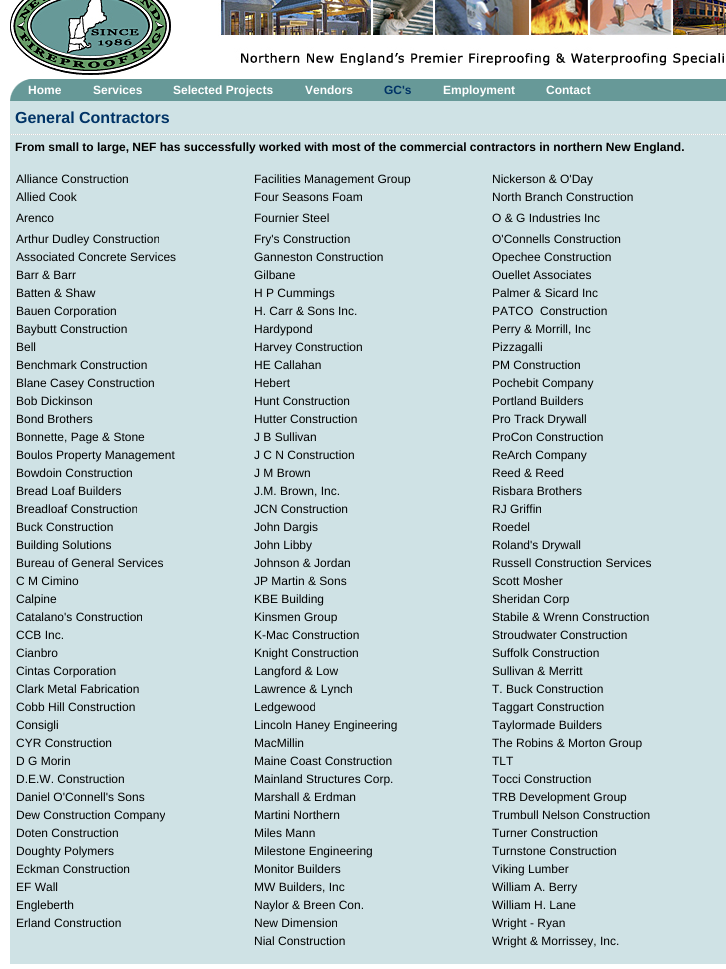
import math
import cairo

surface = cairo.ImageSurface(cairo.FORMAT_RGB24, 726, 969)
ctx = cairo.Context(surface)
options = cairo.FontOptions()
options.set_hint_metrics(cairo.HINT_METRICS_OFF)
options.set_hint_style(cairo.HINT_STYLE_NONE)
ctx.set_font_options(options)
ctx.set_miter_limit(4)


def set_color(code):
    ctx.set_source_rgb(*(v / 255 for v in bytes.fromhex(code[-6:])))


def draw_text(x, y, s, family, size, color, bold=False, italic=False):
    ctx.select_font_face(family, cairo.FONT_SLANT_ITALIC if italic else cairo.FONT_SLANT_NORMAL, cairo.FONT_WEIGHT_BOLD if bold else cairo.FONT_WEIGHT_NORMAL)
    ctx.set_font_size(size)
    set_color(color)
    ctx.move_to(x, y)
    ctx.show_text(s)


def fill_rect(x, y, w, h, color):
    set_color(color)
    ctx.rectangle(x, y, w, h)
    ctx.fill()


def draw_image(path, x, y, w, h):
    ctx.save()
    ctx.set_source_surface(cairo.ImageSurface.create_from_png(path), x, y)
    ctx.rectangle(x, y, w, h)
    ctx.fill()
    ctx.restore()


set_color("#ffffff")
ctx.paint()
draw_image("assets/img1.png", 10, 0, 161, 75)
draw_image("assets/img2.png", 218, 0, 508, 66)
draw_image("assets/img3.png", 10, 79, 716, 22)
draw_text(28, 94, "Home", "Liberation Sans", 12, "#ffffff", bold=True)
draw_text(93, 94, "Services", "Liberation Sans", 12, "#ffffff", bold=True)
draw_text(173, 94, "Selected Projects", "Liberation Sans", 12, "#ffffff", bold=True)
draw_text(305, 94, "Vendors", "Liberation Sans", 12, "#ffffff", bold=True)
draw_text(384, 94, "GC's", "Liberation Sans", 12, "#003366", bold=True)
draw_text(443, 94, "Employment", "Liberation Sans", 12, "#ffffff", bold=True)
draw_text(546, 94, "Contact", "Liberation Sans", 12, "#ffffff", bold=True)
fill_rect(10, 101, 716, 863, "#cfe2e5")
draw_image("assets/img4.png", 10, 134, 716, 1)
draw_text(15, 123, "General Contractors", "Liberation Sans", 16, "#003366", bold=True)
draw_text(15, 151, "From small to large, NEF has successfully worked with most of the commercial contractors in northern New England.", "Liberation Sans", 12, "#000000", bold=True)
draw_text(16, 183, "Alliance Construction", "Liberation Sans", 12, "#000000")
draw_text(254, 183, "Facilities Management Group", "Liberation Sans", 12, "#000000")
draw_text(492, 183, "Nickerson & O'Day", "Liberation Sans", 12, "#000000")
draw_text(16, 201, "Allied Cook", "Liberation Sans", 12, "#000000")
draw_text(254, 201, "Four Seasons Foam", "Liberation Sans", 12, "#000000")
draw_text(492, 201, "North Branch Construction", "Liberation Sans", 12, "#000000")
draw_text(16, 222, "Arenco", "Liberation Sans", 12, "#000000")
draw_text(254, 222, "Fournier Steel", "Liberation Sans", 12, "#000000")
draw_text(492, 222, "O & G Industries Inc", "Liberation Sans", 12, "#000000")
draw_text(16, 243, "Arthur Dudley Construction", "Liberation Sans", 12, "#000000")
draw_text(254, 243, "Fry's Construction", "Liberation Sans", 12, "#000000")
draw_text(492, 243, "O'Connells Construction", "Liberation Sans", 12, "#000000")
draw_text(16, 261, "Associated Concrete Services", "Liberation Sans", 12, "#000000")
draw_text(254, 261, "Ganneston Construction", "Liberation Sans", 12, "#000000")
draw_text(492, 261, "Opechee Construction", "Liberation Sans", 12, "#000000")
draw_text(16, 279, "Barr & Barr", "Liberation Sans", 12, "#000000")
draw_text(254, 279, "Gilbane", "Liberation Sans", 12, "#000000")
draw_text(492, 279, "Ouellet Associates", "Liberation Sans", 12, "#000000")
draw_text(16, 297, "Batten & Shaw", "Liberation Sans", 12, "#000000")
draw_text(254, 297, "H P Cummings", "Liberation Sans", 12, "#000000")
draw_text(492, 297, "Palmer & Sicard Inc", "Liberation Sans", 12, "#000000")
draw_text(16, 315, "Bauen Corporation", "Liberation Sans", 12, "#000000")
draw_text(254, 315, "H. Carr & Sons Inc.", "Liberation Sans", 12, "#000000")
draw_text(492, 315, "PATCO  Construction", "Liberation Sans", 12, "#000000")
draw_text(16, 333, "Baybutt Construction", "Liberation Sans", 12, "#000000")
draw_text(254, 333, "Hardypond", "Liberation Sans", 12, "#000000")
draw_text(492, 333, "Perry & Morrill, Inc", "Liberation Sans", 12, "#000000")
draw_text(16, 351, "Bell", "Liberation Sans", 12, "#000000")
draw_text(254, 351, "Harvey Construction", "Liberation Sans", 12, "#000000")
draw_text(492, 351, "Pizzagalli", "Liberation Sans", 12, "#000000")
draw_text(16, 369, "Benchmark Construction", "Liberation Sans", 12, "#000000")
draw_text(254, 369, "HE Callahan", "Liberation Sans", 12, "#000000")
draw_text(492, 369, "PM Construction", "Liberation Sans", 12, "#000000")
draw_text(16, 387, "Blane Casey Construction", "Liberation Sans", 12, "#000000")
draw_text(254, 387, "Hebert", "Liberation Sans", 12, "#000000")
draw_text(492, 387, "Pochebit Company", "Liberation Sans", 12, "#000000")
draw_text(16, 405, "Bob Dickinson", "Liberation Sans", 12, "#000000")
draw_text(254, 405, "Hunt Construction", "Liberation Sans", 12, "#000000")
draw_text(492, 405, "Portland Builders", "Liberation Sans", 12, "#000000")
draw_text(16, 423, "Bond Brothers", "Liberation Sans", 12, "#000000")
draw_text(254, 423, "Hutter Construction", "Liberation Sans", 12, "#000000")
draw_text(492, 423, "Pro Track Drywall", "Liberation Sans", 12, "#000000")
draw_text(16, 441, "Bonnette, Page & Stone", "Liberation Sans", 12, "#000000")
draw_text(254, 441, "J B Sullivan", "Liberation Sans", 12, "#000000")
draw_text(492, 441, "ProCon Construction", "Liberation Sans", 12, "#000000")
draw_text(16, 459, "Boulos Property Management", "Liberation Sans", 12, "#000000")
draw_text(254, 459, "J C N Construction", "Liberation Sans", 12, "#000000")
draw_text(492, 459, "ReArch Company", "Liberation Sans", 12, "#000000")
draw_text(16, 477, "Bowdoin Construction", "Liberation Sans", 12, "#000000")
draw_text(254, 477, "J M Brown", "Liberation Sans", 12, "#000000")
draw_text(492, 477, "Reed & Reed", "Liberation Sans", 12, "#000000")
draw_text(16, 495, "Bread Loaf Builders", "Liberation Sans", 12, "#000000")
draw_text(254, 495, "J.M. Brown, Inc.", "Liberation Sans", 12, "#000000")
draw_text(492, 495, "Risbara Brothers", "Liberation Sans", 12, "#000000")
draw_text(16, 513, "Breadloaf Construction", "Liberation Sans", 12, "#000000")
draw_text(254, 513, "JCN Construction", "Liberation Sans", 12, "#000000")
draw_text(492, 513, "RJ Griffin", "Liberation Sans", 12, "#000000")
draw_text(16, 531, "Buck Construction", "Liberation Sans", 12, "#000000")
draw_text(254, 531, "John Dargis", "Liberation Sans", 12, "#000000")
draw_text(492, 531, "Roedel", "Liberation Sans", 12, "#000000")
draw_text(16, 549, "Building Solutions", "Liberation Sans", 12, "#000000")
draw_text(254, 549, "John Libby", "Liberation Sans", 12, "#000000")
draw_text(492, 549, "Roland's Drywall", "Liberation Sans", 12, "#000000")
draw_text(16, 567, "Bureau of General Services", "Liberation Sans", 12, "#000000")
draw_text(254, 567, "Johnson & Jordan", "Liberation Sans", 12, "#000000")
draw_text(492, 567, "Russell Construction Services", "Liberation Sans", 12, "#000000")
draw_text(16, 585, "C M Cimino", "Liberation Sans", 12, "#000000")
draw_text(254, 585, "JP Martin & Sons", "Liberation Sans", 12, "#000000")
draw_text(492, 585, "Scott Mosher", "Liberation Sans", 12, "#000000")
draw_text(16, 603, "Calpine", "Liberation Sans", 12, "#000000")
draw_text(254, 603, "KBE Building", "Liberation Sans", 12, "#000000")
draw_text(492, 603, "Sheridan Corp", "Liberation Sans", 12, "#000000")
draw_text(16, 621, "Catalano's Construction", "Liberation Sans", 12, "#000000")
draw_text(254, 621, "Kinsmen Group", "Liberation Sans", 12, "#000000")
draw_text(492, 621, "Stabile & Wrenn Construction", "Liberation Sans", 12, "#000000")
draw_text(16, 639, "CCB Inc.", "Liberation Sans", 12, "#000000")
draw_text(254, 639, "K-Mac Construction", "Liberation Sans", 12, "#000000")
draw_text(492, 639, "Stroudwater Construction", "Liberation Sans", 12, "#000000")
draw_text(16, 657, "Cianbro", "Liberation Sans", 12, "#000000")
draw_text(254, 657, "Knight Construction", "Liberation Sans", 12, "#000000")
draw_text(492, 657, "Suffolk Construction", "Liberation Sans", 12, "#000000")
draw_text(16, 675, "Cintas Corporation", "Liberation Sans", 12, "#000000")
draw_text(254, 675, "Langford & Low", "Liberation Sans", 12, "#000000")
draw_text(492, 675, "Sullivan & Merritt", "Liberation Sans", 12, "#000000")
draw_text(16, 693, "Clark Metal Fabrication", "Liberation Sans", 12, "#000000")
draw_text(254, 693, "Lawrence & Lynch", "Liberation Sans", 12, "#000000")
draw_text(492, 693, "T. Buck Construction", "Liberation Sans", 12, "#000000")
draw_text(16, 711, "Cobb Hill Construction", "Liberation Sans", 12, "#000000")
draw_text(254, 711, "Ledgewood", "Liberation Sans", 12, "#000000")
draw_text(492, 711, "Taggart Construction", "Liberation Sans", 12, "#000000")
draw_text(16, 729, "Consigli", "Liberation Sans", 12, "#000000")
draw_text(254, 729, "Lincoln Haney Engineering", "Liberation Sans", 12, "#000000")
draw_text(492, 729, "Taylormade Builders", "Liberation Sans", 12, "#000000")
draw_text(16, 747, "CYR Construction", "Liberation Sans", 12, "#000000")
draw_text(254, 747, "MacMillin", "Liberation Sans", 12, "#000000")
draw_text(492, 747, "The Robins & Morton Group", "Liberation Sans", 12, "#000000")
draw_text(16, 765, "D G Morin", "Liberation Sans", 12, "#000000")
draw_text(254, 765, "Maine Coast Construction", "Liberation Sans", 12, "#000000")
draw_text(492, 765, "TLT", "Liberation Sans", 12, "#000000")
draw_text(16, 783, "D.E.W. Construction", "Liberation Sans", 12, "#000000")
draw_text(254, 783, "Mainland Structures Corp.", "Liberation Sans", 12, "#000000")
draw_text(492, 783, "Tocci Construction", "Liberation Sans", 12, "#000000")
draw_text(16, 801, "Daniel O'Connell's Sons", "Liberation Sans", 12, "#000000")
draw_text(254, 801, "Marshall & Erdman", "Liberation Sans", 12, "#000000")
draw_text(492, 801, "TRB Development Group", "Liberation Sans", 12, "#000000")
draw_text(16, 819, "Dew Construction Company", "Liberation Sans", 12, "#000000")
draw_text(254, 819, "Martini Northern", "Liberation Sans", 12, "#000000")
draw_text(492, 819, "Trumbull Nelson Construction", "Liberation Sans", 12, "#000000")
draw_text(16, 837, "Doten Construction", "Liberation Sans", 12, "#000000")
draw_text(254, 837, "Miles Mann", "Liberation Sans", 12, "#000000")
draw_text(492, 837, "Turner Construction", "Liberation Sans", 12, "#000000")
draw_text(16, 855, "Doughty Polymers", "Liberation Sans", 12, "#000000")
draw_text(254, 855, "Milestone Engineering", "Liberation Sans", 12, "#000000")
draw_text(492, 855, "Turnstone Construction", "Liberation Sans", 12, "#000000")
draw_text(16, 873, "Eckman Construction", "Liberation Sans", 12, "#000000")
draw_text(254, 873, "Monitor Builders", "Liberation Sans", 12, "#000000")
draw_text(492, 873, "Viking Lumber", "Liberation Sans", 12, "#000000")
draw_text(16, 891, "EF Wall", "Liberation Sans", 12, "#000000")
draw_text(254, 891, "MW Builders, Inc", "Liberation Sans", 12, "#000000")
draw_text(492, 891, "William A. Berry", "Liberation Sans", 12, "#000000")
draw_text(16, 909, "Engleberth", "Liberation Sans", 12, "#000000")
draw_text(254, 909, "Naylor & Breen Con.", "Liberation Sans", 12, "#000000")
draw_text(492, 909, "William H. Lane", "Liberation Sans", 12, "#000000")
draw_text(16, 927, "Erland Construction", "Liberation Sans", 12, "#000000")
draw_text(254, 927, "New Dimension", "Liberation Sans", 12, "#000000")
draw_text(492, 927, "Wright - Ryan", "Liberation Sans", 12, "#000000")
draw_text(254, 945, "Nial Construction", "Liberation Sans", 12, "#000000")
draw_text(492, 945, "Wright & Morrissey, Inc.", "Liberation Sans", 12, "#000000")
surface.write_to_png("output.png")
